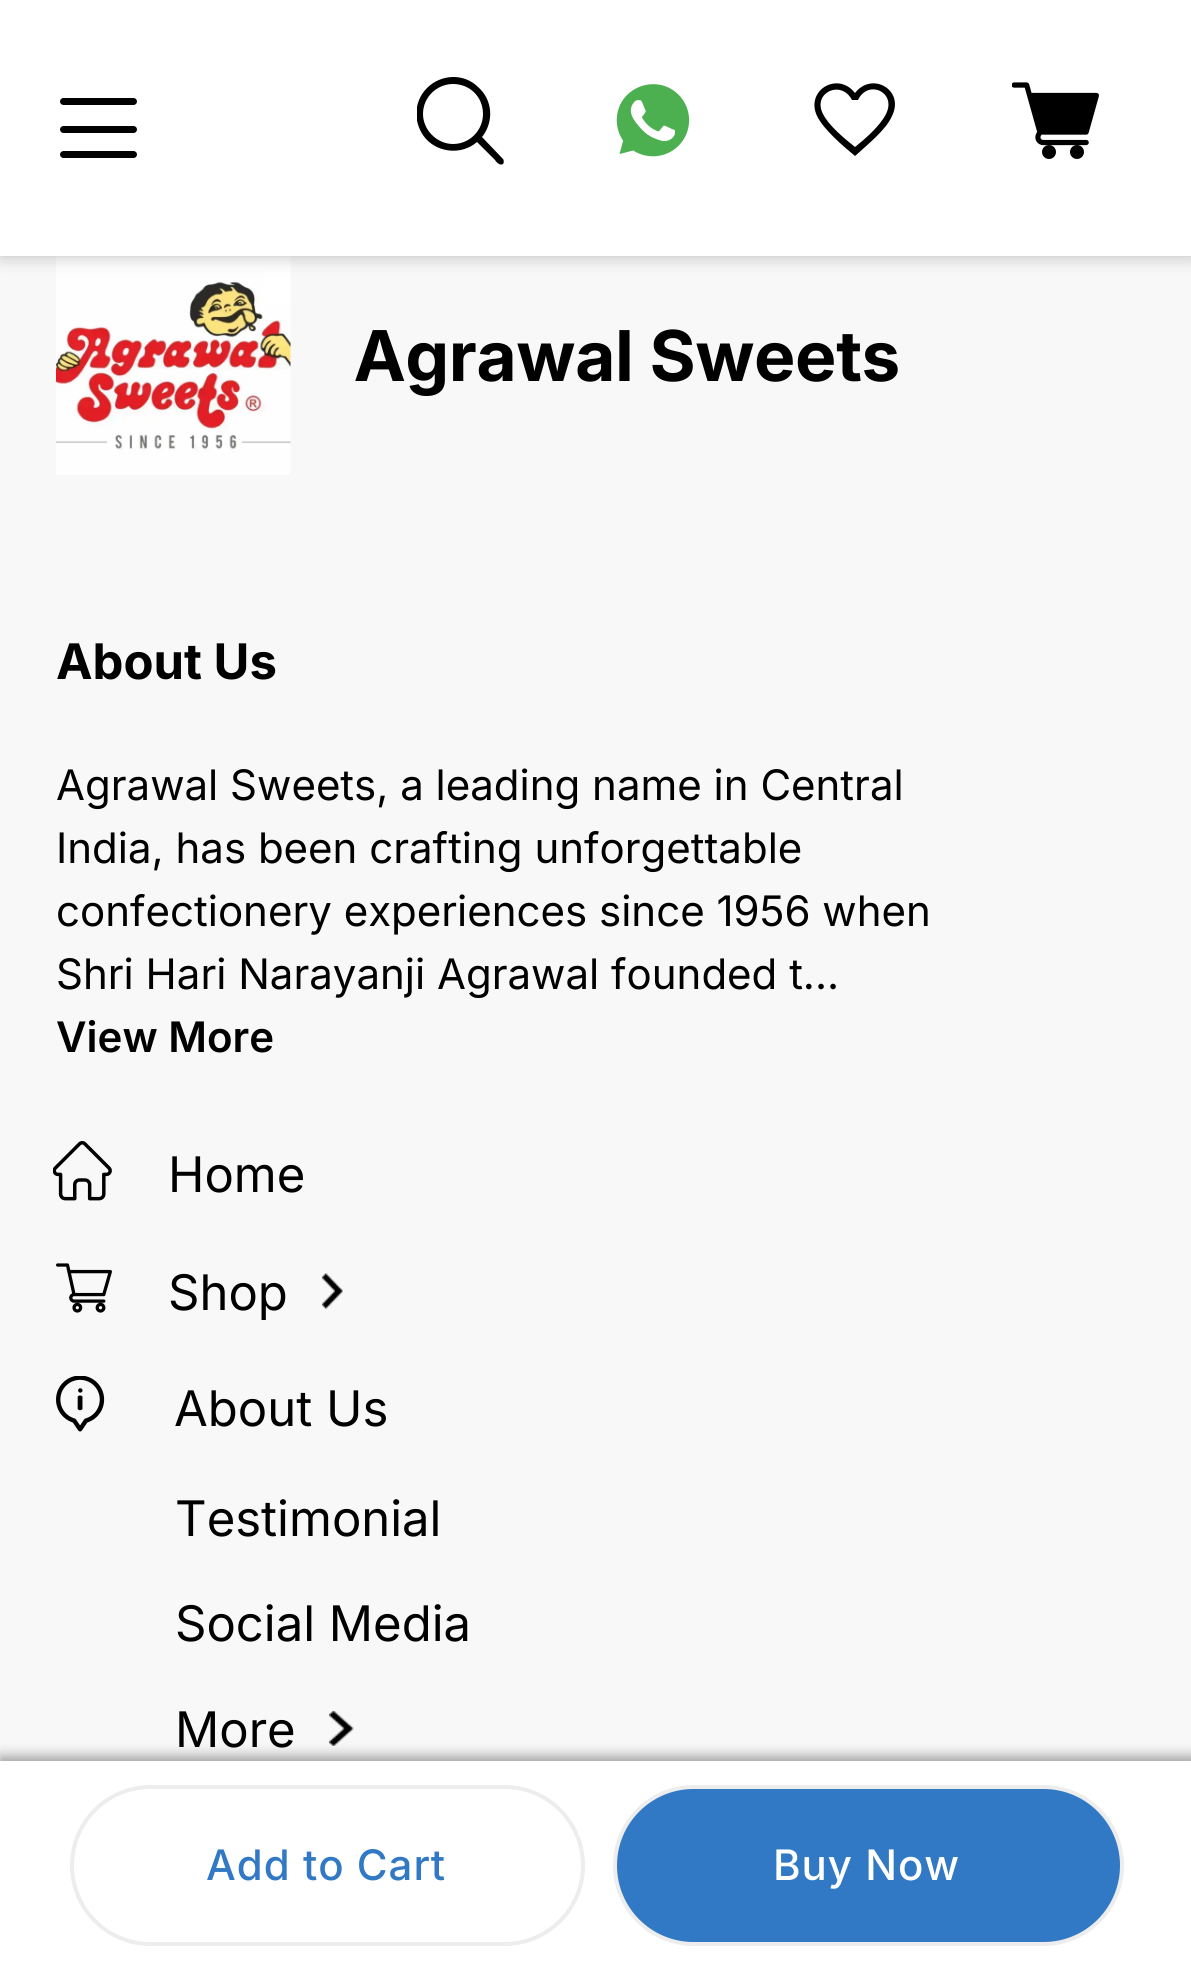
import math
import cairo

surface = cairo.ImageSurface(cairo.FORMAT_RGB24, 1191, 1970)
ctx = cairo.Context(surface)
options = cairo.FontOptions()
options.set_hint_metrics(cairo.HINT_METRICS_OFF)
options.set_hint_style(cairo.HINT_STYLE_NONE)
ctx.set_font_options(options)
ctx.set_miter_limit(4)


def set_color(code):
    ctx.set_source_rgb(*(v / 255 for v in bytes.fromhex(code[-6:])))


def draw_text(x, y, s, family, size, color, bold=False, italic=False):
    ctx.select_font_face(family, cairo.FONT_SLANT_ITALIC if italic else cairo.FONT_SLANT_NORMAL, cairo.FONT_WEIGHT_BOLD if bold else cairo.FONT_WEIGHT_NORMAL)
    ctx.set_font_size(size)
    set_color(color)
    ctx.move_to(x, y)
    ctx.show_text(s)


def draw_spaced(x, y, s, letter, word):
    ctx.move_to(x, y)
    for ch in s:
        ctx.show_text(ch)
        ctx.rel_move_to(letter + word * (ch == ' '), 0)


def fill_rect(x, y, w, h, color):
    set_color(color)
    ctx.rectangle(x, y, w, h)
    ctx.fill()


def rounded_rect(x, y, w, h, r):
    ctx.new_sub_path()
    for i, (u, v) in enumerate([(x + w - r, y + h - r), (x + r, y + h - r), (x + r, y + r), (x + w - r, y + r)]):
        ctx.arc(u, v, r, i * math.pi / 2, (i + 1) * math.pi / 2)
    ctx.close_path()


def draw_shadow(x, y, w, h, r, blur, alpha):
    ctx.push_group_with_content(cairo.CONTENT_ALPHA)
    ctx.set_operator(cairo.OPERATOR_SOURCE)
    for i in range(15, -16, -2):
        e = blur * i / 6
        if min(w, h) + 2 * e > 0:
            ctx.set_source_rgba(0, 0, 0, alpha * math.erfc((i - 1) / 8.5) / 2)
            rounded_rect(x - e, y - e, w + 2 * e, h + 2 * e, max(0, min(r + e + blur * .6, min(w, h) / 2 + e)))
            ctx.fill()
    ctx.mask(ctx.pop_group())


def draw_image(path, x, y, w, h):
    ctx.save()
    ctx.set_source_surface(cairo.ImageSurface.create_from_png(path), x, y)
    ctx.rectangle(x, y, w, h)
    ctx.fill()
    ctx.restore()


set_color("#f8f8f8")
ctx.paint()
draw_image("assets/img3.png", 56, 256, 235, 219)
set_color("#000000")
draw_shadow(0, 0, 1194, 256, 0, 9, 0.25)
fill_rect(0, 0, 1191, 256, "#ffffff")
set_color("#000000")
rounded_rect(60, 98, 77, 7, 3.5)
ctx.fill()
rounded_rect(60, 126, 77, 7, 3.5)
ctx.fill()
rounded_rect(60, 151, 77, 7, 3.5)
ctx.fill()
ctx.save()
ctx.rectangle(417, 77, 87, 88)
ctx.clip()
ctx.new_path()
ctx.move_to(503, 159)
ctx.line_to(482, 137)
ctx.curve_to(494, 122, 493, 100, 478, 87)
ctx.curve_to(464, 73, 441, 74, 427, 88)
ctx.curve_to(413, 102, 413, 124, 426, 139)
ctx.curve_to(439, 153, 462, 155, 477, 142)
ctx.line_to(495, 160)
ctx.curve_to(496, 162, 500, 166, 503, 164)
ctx.curve_to(504, 163, 504, 160, 503, 159)
ctx.close_path()
ctx.move_to(423, 114)
ctx.curve_to(423, 97, 437, 84, 453, 84)
ctx.curve_to(470, 84, 483, 97, 483, 114)
ctx.curve_to(483, 130, 470, 144, 453, 144)
ctx.curve_to(437, 144, 423, 130, 423, 114)
ctx.close_path()
ctx.fill()
ctx.restore()
draw_image("assets/img1.png", 616, 84, 74, 73)
ctx.new_path()
ctx.move_to(855, 156)
ctx.curve_to(843, 146, 824, 130, 817, 116)
ctx.curve_to(805, 90, 838, 71, 855, 93)
ctx.curve_to(872, 71, 905, 90, 892, 116)
ctx.curve_to(886, 130, 867, 145, 855, 156)
ctx.close_path()
ctx.move_to(855, 147)
ctx.curve_to(865, 139, 880, 126, 886, 114)
ctx.curve_to(897, 92, 868, 79, 858, 100)
ctx.line_to(852, 100)
ctx.curve_to(841, 79, 812, 93, 823, 114)
ctx.curve_to(829, 126, 845, 139, 855, 147)
ctx.close_path()
ctx.fill()
draw_image("assets/img2.png", 1012, 82, 87, 77)
draw_text(354, 381, "Agrawal Sweets", "Inter", 70, "#000000", bold=True)
draw_text(56, 679, "About Us", "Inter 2", 49, "#000000", bold=True)
draw_text(56, 800, "Agrawal Sweets, a leading name in Central", "Inter", 42, "#000000")
draw_text(56, 863, "India, has been crafting unforgettable", "Inter", 42, "#000000")
draw_text(56, 926, "confectionery experiences since 1956 when", "Inter", 42, "#000000")
draw_text(56, 989, "Shri Hari Narayanji Agrawal founded t...", "Inter", 42, "#000000")
draw_text(56, 1052, "View More", "Inter SemiBold", 42, "#000000")
draw_image("assets/img4.png", 53, 1141, 59, 60)
draw_text(168, 1192, "Home", "Inter", 49, "#000000")
draw_image("assets/img5.png", 56, 1263, 56, 50)
draw_text(168, 1310, "Shop", "Inter", 49, "#000000")
draw_image("assets/img6.png", 322, 1273, 21, 36)
draw_image("assets/img7.png", 56, 1376, 49, 56)
draw_text(174, 1426, "About Us", "Inter", 49, "#000000")
draw_text(175, 1536, "Testimonial", "Inter", 49, "#000000")
draw_text(175, 1641, "Social Media", "Inter", 49, "#000000")
draw_text(175, 1747, "More", "Inter", 49, "#000000")
draw_image("assets/img8.png", 329, 1711, 25, 35)
set_color("#000000")
draw_shadow(0, 1757, 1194, 210, 0, 7, 0.4)
fill_rect(0, 1761, 1191, 209, "#ffffff")
rounded_rect(72, 1787, 511, 157, 78.5)
set_color("#ededed")
ctx.set_line_width(4)
ctx.stroke()
ctx.select_font_face("Inter Medium")
ctx.set_font_size(42)
set_color("#3179c4")
draw_spaced(206, 1880, "Add to Cart", 1, 0)
rounded_rect(615, 1787, 507, 157, 78.5)
ctx.fill_preserve()
set_color("#ededed")
ctx.stroke()
set_color("#ffffff")
draw_spaced(773, 1880, "Buy Now", 1, 0)
surface.write_to_png("output.png")
